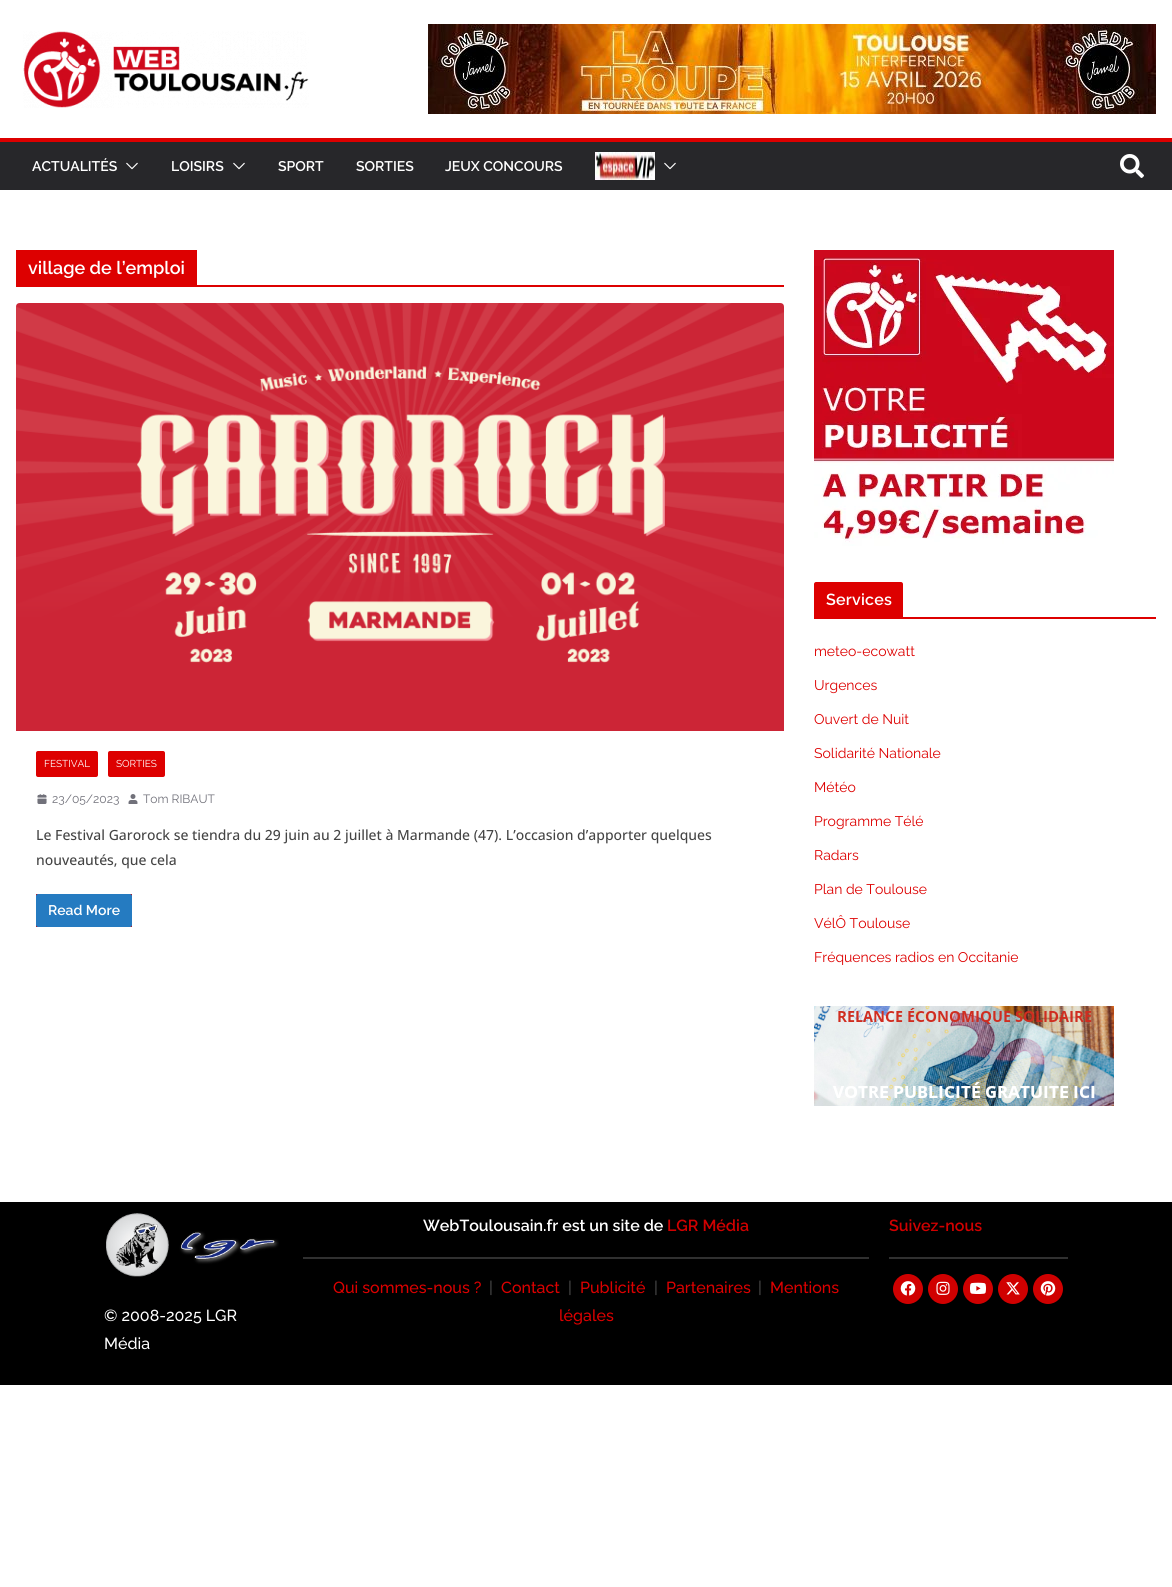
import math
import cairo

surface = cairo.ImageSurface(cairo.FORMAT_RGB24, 1172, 1587)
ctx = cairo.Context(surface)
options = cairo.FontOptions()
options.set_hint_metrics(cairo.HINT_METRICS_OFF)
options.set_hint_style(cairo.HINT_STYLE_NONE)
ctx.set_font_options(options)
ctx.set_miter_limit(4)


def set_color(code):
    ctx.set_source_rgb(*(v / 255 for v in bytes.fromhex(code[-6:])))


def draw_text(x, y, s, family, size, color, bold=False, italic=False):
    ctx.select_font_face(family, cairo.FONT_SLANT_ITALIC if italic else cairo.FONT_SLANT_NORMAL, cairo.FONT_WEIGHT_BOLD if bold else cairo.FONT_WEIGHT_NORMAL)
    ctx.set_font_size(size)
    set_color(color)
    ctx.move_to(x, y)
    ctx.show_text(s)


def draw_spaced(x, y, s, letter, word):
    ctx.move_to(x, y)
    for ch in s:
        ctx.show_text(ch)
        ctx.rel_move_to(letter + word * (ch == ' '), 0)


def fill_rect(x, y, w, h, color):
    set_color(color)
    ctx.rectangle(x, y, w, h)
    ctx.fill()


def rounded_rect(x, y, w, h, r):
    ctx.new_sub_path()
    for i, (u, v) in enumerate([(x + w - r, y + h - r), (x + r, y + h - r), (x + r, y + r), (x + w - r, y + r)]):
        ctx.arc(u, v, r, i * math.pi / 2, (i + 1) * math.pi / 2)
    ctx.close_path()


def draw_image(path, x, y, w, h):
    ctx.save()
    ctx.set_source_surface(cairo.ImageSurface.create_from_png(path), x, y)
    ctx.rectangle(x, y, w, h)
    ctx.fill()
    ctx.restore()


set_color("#ffffff")
ctx.paint()
draw_image("assets/img1.png", 23, 31, 286, 77)
draw_image("assets/img2.png", 428, 24, 728, 90)
fill_rect(0, 142, 1172, 48, "#27272a")
fill_rect(0, 138, 1172, 4, "#dd0000")
draw_text(32, 171, "ACTUALITÉS", "Raleway SemiBold", 14, "#ffffff")
draw_image("assets/img3.png", 126, 162, 12, 8)
draw_text(171, 171, "LOISIRS", "Raleway SemiBold", 14, "#ffffff")
draw_image("assets/img3.png", 233, 162, 12, 8)
draw_text(278, 171, "SPORT", "Raleway SemiBold", 14, "#ffffff")
draw_text(356, 171, "SORTIES", "Raleway SemiBold", 14, "#ffffff")
draw_text(445, 171, "JEUX CONCOURS", "Raleway SemiBold", 14, "#ffffff")
draw_image("assets/img4.png", 595, 152, 60, 28)
draw_image("assets/img3.png", 664, 162, 12, 8)
draw_image("assets/img5.png", 1120, 154, 24, 24)
fill_rect(16, 285, 768, 2, "#dd0000")
fill_rect(16, 250, 181, 35, "#dd0000")
draw_text(28, 274, "village de l’emploi", "Raleway SemiBold", 18, "#ffffff")
draw_image("assets/img6.png", 16, 303, 768, 428)
set_color("#dd0000")
rounded_rect(36, 751, 62, 26, 2)
ctx.fill()
draw_text(44, 767, "FESTIVAL", "Raleway", 10, "#ffffff")
set_color("#dd0000")
rounded_rect(108, 751, 57, 26, 2)
ctx.fill()
draw_text(116, 767, "SORTIES", "Raleway", 10, "#ffffff")
draw_image("assets/img7.png", 37, 794, 10, 10)
draw_text(52, 803, "23/05/2023", "Raleway", 12, "#71717a")
draw_image("assets/img8.png", 128, 794, 10, 10)
draw_text(143, 803, "Tom RIBAUT", "Raleway", 12, "#71717a")
draw_text(36, 840, "Le Festival Garorock se tiendra du 29 juin au 2 juillet à Marmande (47). L’occasion d’apporter quelques", "Open Sans Medium", 14, "#444444")
draw_text(36, 865, "nouveautés, que cela", "Open Sans Medium", 14, "#444444")
fill_rect(36, 894, 96, 33, "#dd0000")
set_color("#257bc1")
rounded_rect(36, 894, 96, 33, 2)
ctx.fill()
draw_text(48, 915, "Read More", "Raleway SemiBold", 14, "#ffffff")
draw_image("assets/img9.png", 814, 250, 300, 296)
fill_rect(814, 617, 342, 2, "#dd0000")
ctx.new_path()
ctx.move_to(816, 582)
ctx.line_to(901, 582)
ctx.curve_to(902, 582, 903, 583, 903, 584)
ctx.line_to(903, 617)
ctx.line_to(814, 617)
ctx.line_to(814, 584)
ctx.curve_to(814, 583, 815, 582, 816, 582)
ctx.close_path()
ctx.fill()
ctx.set_font_size(16)
set_color("#ffffff")
draw_spaced(826, 605, "Services", 0.25, 0)
draw_text(814, 656, "meteo-ecowatt", "Raleway", 14, "#dd0000")
draw_text(814, 690, "Urgences", "Raleway", 14, "#dd0000")
draw_text(814, 724, "Ouvert de Nuit", "Raleway", 14, "#dd0000")
draw_text(814, 758, "Solidarité Nationale", "Raleway", 14, "#dd0000")
draw_text(814, 792, "Météo", "Raleway", 14, "#dd0000")
draw_text(814, 826, "Programme Télé", "Raleway", 14, "#dd0000")
draw_text(814, 860, "Radars", "Raleway", 14, "#dd0000")
draw_text(814, 894, "Plan de Toulouse", "Raleway", 14, "#dd0000")
draw_text(814, 928, "VélÔ Toulouse", "Raleway", 14, "#dd0000")
draw_text(814, 962, "Fréquences radios en Occitanie", "Raleway", 14, "#dd0000")
draw_image("assets/img10.png", 814, 1006, 300, 100)
fill_rect(0, 1202, 1172, 183, "#000000")
draw_text(423, 1231, "WebToulousain.fr est un site de", "Raleway SemiBold", 16, "#ffffff")
draw_text(667, 1231, "LGR Média", "Raleway SemiBold", 16, "#d00000")
fill_rect(303, 1257, 566, 2, "#303030")
draw_text(333, 1293, "Qui sommes-nous ?", "Raleway Medium", 16, "#dd0000")
draw_text(489, 1293, "|", "Raleway Medium", 16, "#444444")
draw_text(501, 1293, "Contact", "Raleway Medium", 16, "#dd0000")
draw_text(568, 1293, "|", "Raleway Medium", 16, "#444444")
draw_text(580, 1293, "Publicité", "Raleway Medium", 16, "#dd0000")
draw_text(654, 1293, "|", "Raleway Medium", 16, "#444444")
draw_text(666, 1293, "Partenaires", "Raleway Medium", 16, "#dd0000")
draw_text(758, 1293, "|", "Raleway Medium", 16, "#444444")
draw_text(770, 1293, "Mentions", "Raleway Medium", 16, "#dd0000")
draw_text(559, 1321, "légales", "Raleway Medium", 16, "#dd0000")
draw_text(889, 1231, "Suivez-nous", "Raleway SemiBold", 16, "#d00000")
fill_rect(889, 1257, 179, 2, "#303030")
set_color("#d00000")
ctx.new_path()
ctx.arc(908, 1289, 15, 0, 2 * math.pi)
ctx.fill()
draw_image("assets/img11.png", 900, 1281, 16, 15)
ctx.arc(943, 1289, 15, 0, 2 * math.pi)
ctx.fill()
draw_image("assets/img12.png", 936, 1281, 14, 14)
ctx.arc(978, 1289, 15, 0, 2 * math.pi)
ctx.fill()
draw_image("assets/img13.png", 970, 1282, 16, 12)
ctx.arc(1013, 1289, 15, 0, 2 * math.pi)
ctx.fill()
draw_image("assets/img14.png", 1006, 1282, 14, 13)
ctx.arc(1048, 1289, 15, 0, 2 * math.pi)
ctx.fill()
draw_image("assets/img15.png", 1040, 1281, 16, 15)
draw_image("assets/img16.png", 106, 1213, 173, 64)
draw_text(104, 1321, "© 2008-2025 LGR", "Raleway Medium", 16, "#ffffff")
draw_text(104, 1349, "Média", "Raleway Medium", 16, "#ffffff")
surface.write_to_png("output.png")
